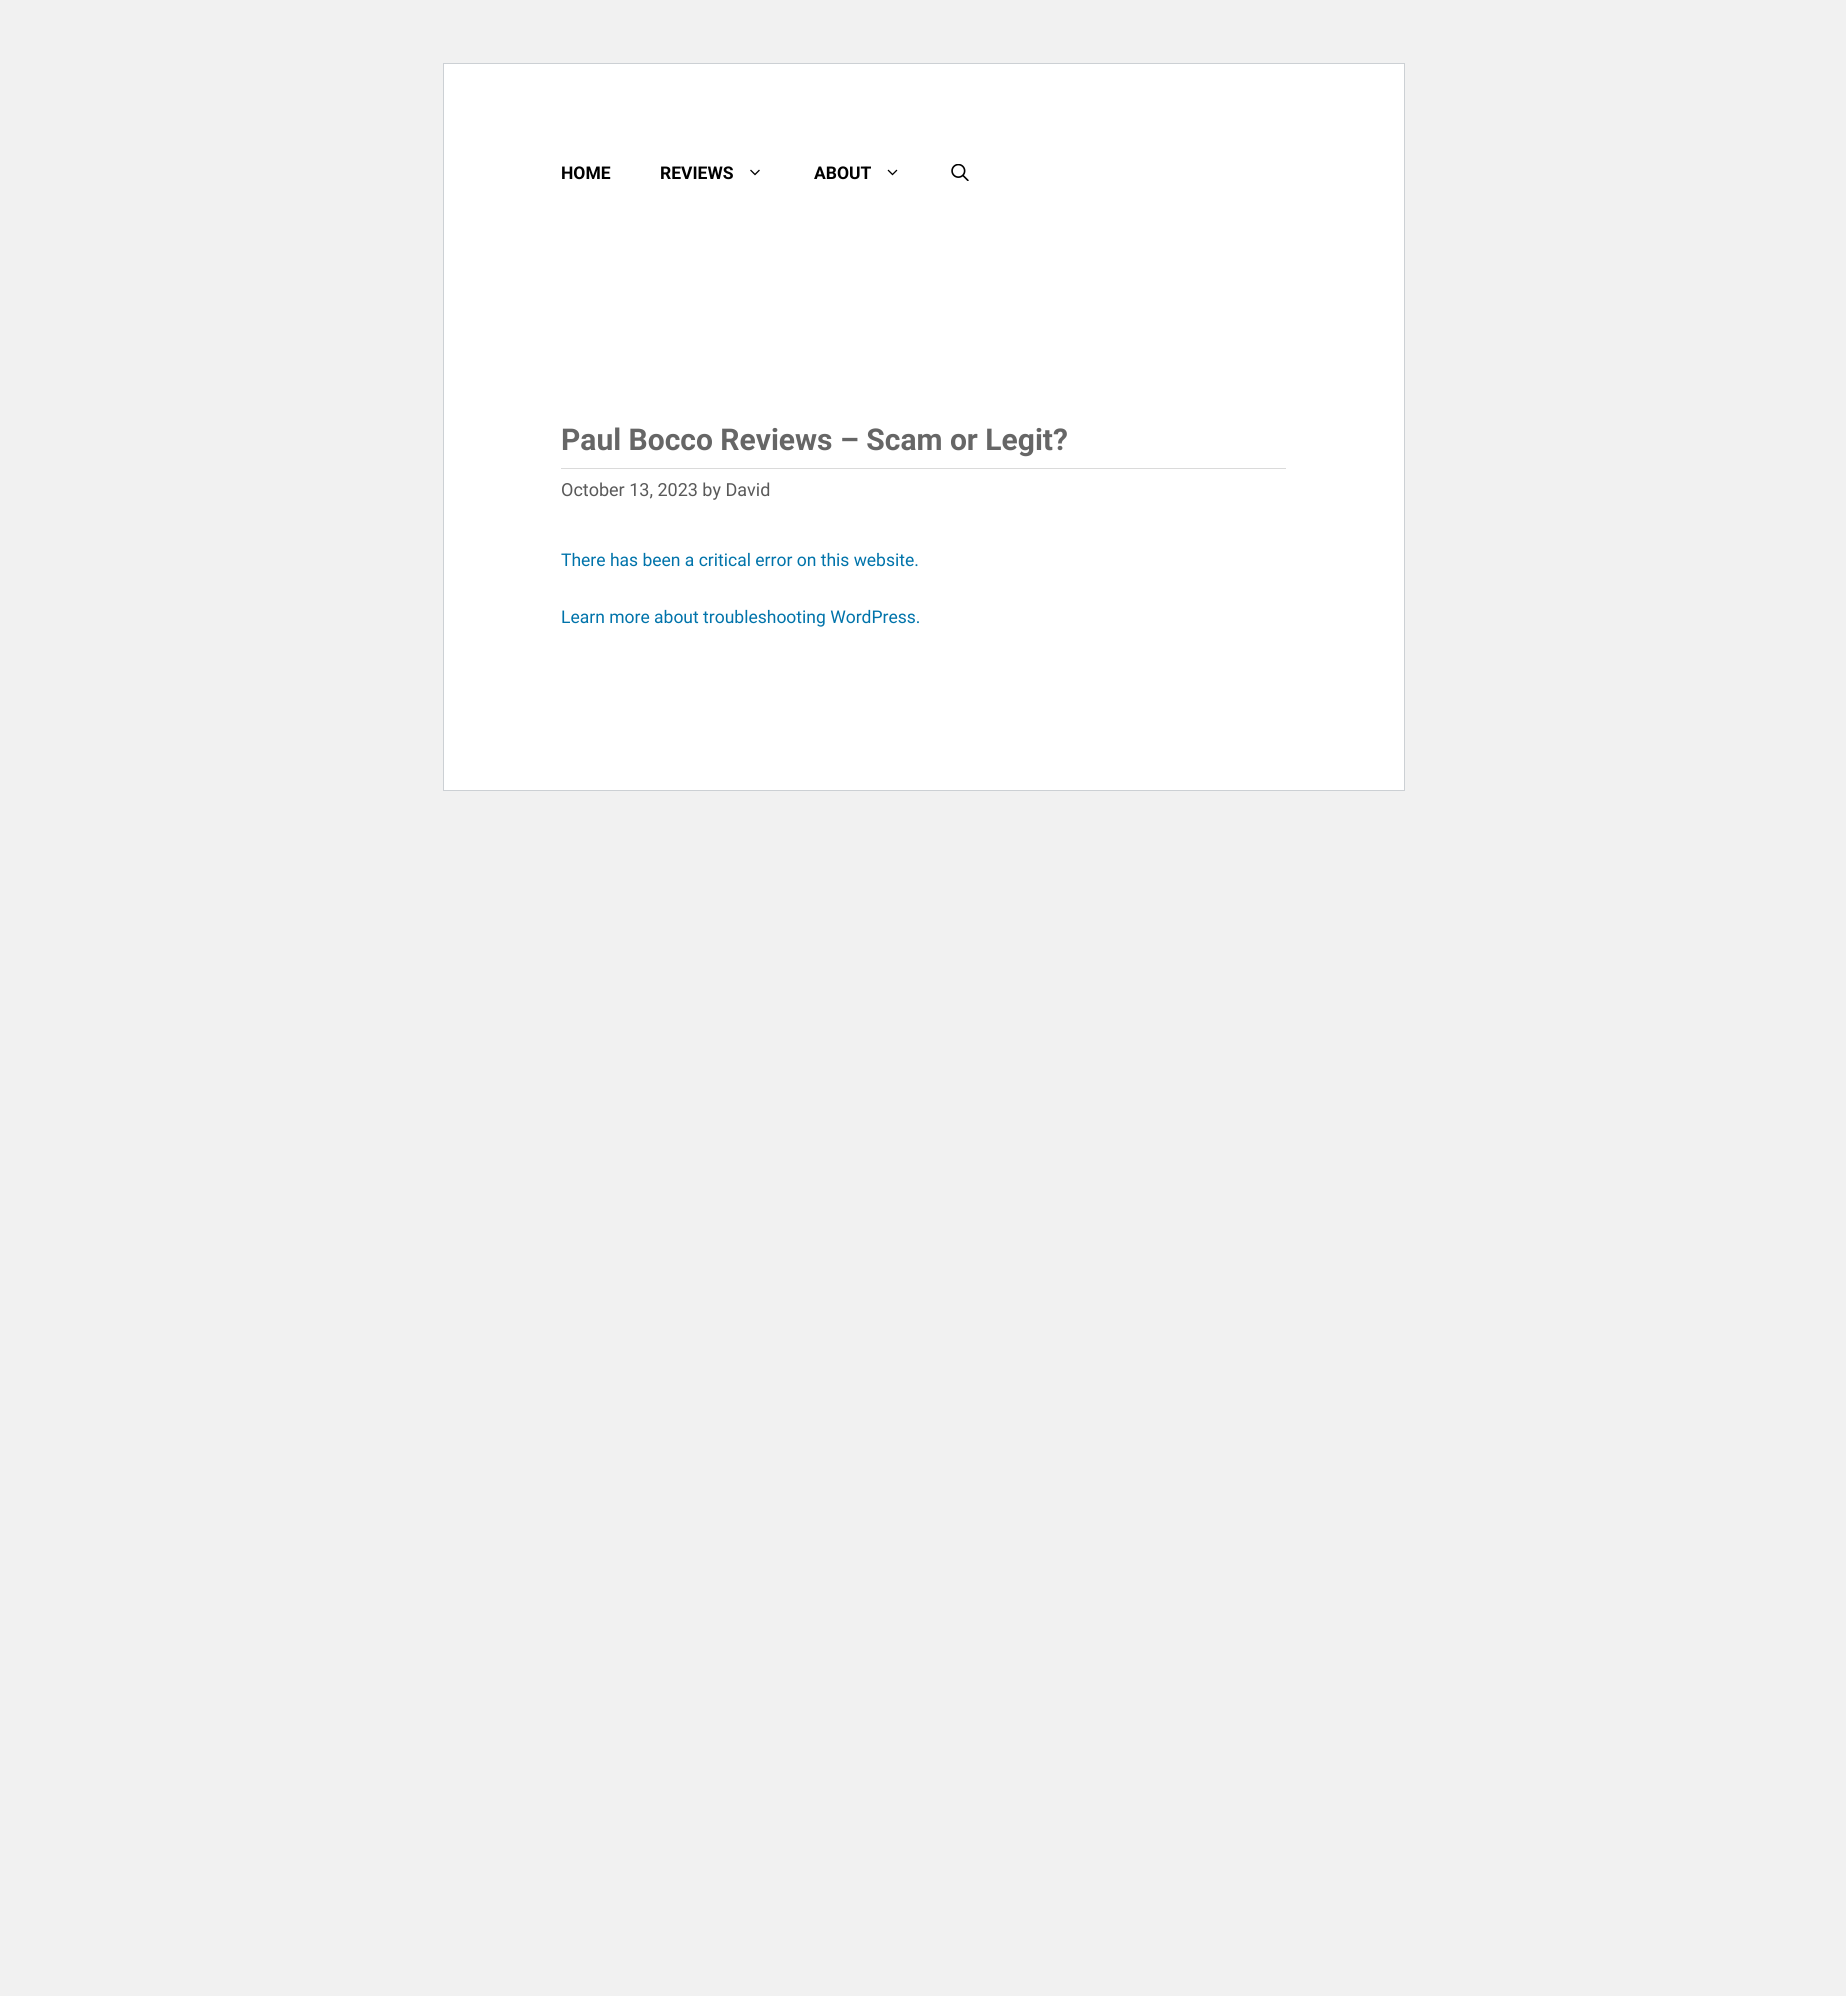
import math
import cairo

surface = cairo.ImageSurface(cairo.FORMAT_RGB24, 1846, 1996)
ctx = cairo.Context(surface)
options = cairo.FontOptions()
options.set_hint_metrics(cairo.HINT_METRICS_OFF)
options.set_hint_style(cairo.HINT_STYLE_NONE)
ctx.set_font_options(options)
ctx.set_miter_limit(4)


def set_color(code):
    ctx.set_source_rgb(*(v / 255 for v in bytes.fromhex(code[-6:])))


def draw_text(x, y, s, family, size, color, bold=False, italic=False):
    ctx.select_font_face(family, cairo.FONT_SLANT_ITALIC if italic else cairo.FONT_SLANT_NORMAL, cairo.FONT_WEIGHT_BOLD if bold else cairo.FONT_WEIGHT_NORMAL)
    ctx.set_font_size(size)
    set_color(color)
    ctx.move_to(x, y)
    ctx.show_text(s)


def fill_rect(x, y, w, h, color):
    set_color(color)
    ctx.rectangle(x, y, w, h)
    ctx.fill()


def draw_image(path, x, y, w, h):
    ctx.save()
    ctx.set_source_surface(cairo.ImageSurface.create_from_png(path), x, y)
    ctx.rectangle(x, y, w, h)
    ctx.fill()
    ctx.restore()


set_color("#f1f1f1")
ctx.paint()
set_color("#ffffff")
ctx.rectangle(443.5, 63.5, 961, 727)
ctx.fill_preserve()
set_color("#ccd0d4")
ctx.set_line_width(1)
ctx.stroke()
draw_text(561, 179, "HOME", "Roboto", 17.5, "#000000", bold=True)
draw_text(660, 179, "REVIEWS", "Roboto", 17.5, "#000000", bold=True)
draw_image("assets/img1.png", 750, 169, 10, 7)
draw_text(814, 179, "ABOUT", "Roboto", 17.5, "#000000", bold=True)
draw_image("assets/img2.png", 887, 169, 11, 7)
draw_image("assets/img3.png", 951, 164, 18, 17)
fill_rect(561, 468, 725, 1, "#dadada")
draw_text(561, 450, "Paul Bocco Reviews – Scam or Legit?", "Roboto", 30, "#666666", bold=True)
draw_text(561, 496, "October 13, 2023 by David", "Roboto", 18, "#595959")
draw_text(561, 566, "There has been a critical error on this website.", "Roboto", 17.5, "#0073aa")
draw_text(561, 623, "Learn more about troubleshooting WordPress.", "Roboto", 17.5, "#0073aa")
surface.write_to_png("output.png")
